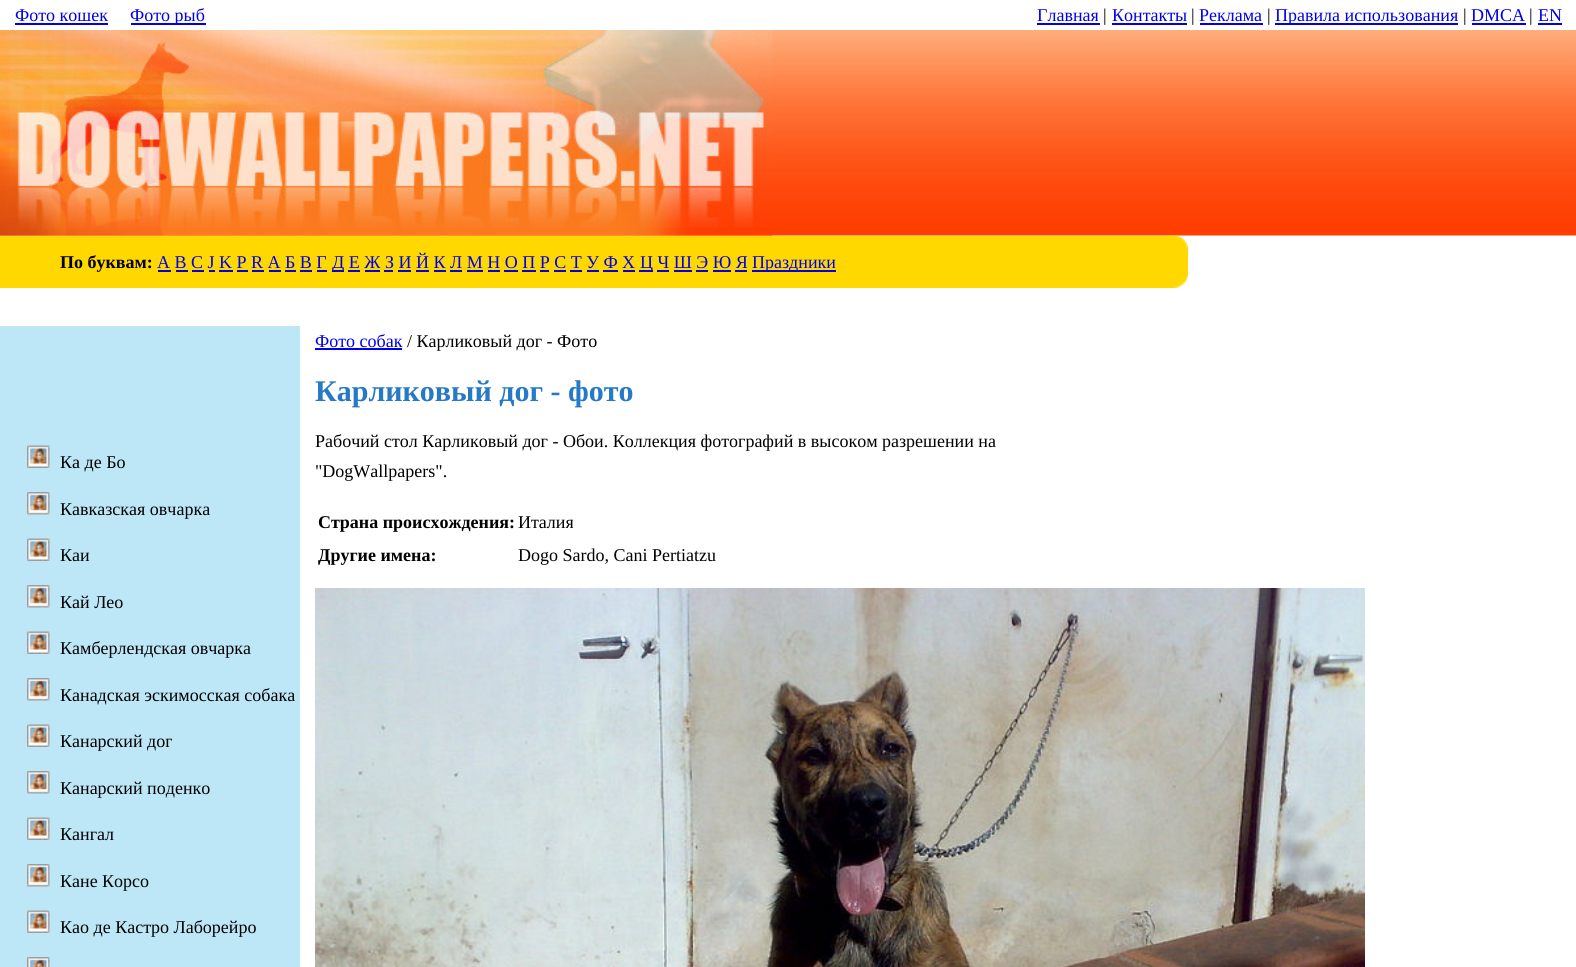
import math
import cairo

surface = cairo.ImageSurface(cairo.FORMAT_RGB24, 1576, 967)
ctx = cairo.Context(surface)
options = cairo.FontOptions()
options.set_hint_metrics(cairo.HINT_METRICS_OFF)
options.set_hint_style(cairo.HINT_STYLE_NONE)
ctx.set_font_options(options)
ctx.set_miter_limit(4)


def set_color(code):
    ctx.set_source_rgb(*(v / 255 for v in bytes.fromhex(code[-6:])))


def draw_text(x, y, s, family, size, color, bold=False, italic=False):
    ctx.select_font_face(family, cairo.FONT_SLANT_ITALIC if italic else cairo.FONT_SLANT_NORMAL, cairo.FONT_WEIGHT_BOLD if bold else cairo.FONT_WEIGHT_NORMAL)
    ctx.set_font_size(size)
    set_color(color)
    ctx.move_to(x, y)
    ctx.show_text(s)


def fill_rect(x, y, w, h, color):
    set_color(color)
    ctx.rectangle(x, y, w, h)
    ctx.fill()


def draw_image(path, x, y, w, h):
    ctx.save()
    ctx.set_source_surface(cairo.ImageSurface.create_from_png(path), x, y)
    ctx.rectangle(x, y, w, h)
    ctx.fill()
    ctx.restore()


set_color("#ffffff")
ctx.paint()
draw_text(15, 21, "Фото кошек", "Liberation Serif", 18, "#0000ee")
fill_rect(15, 23, 93, 2, "#0000ee")
fill_rect(131, 23, 75, 2, "#0000ee")
draw_text(130, 21, "Фото рыб", "Liberation Serif", 18, "#0000ee")
draw_text(1037, 21, "Главная", "Liberation Serif", 18, "#0000ee")
fill_rect(1037, 23, 63, 2, "#0000ee")
draw_text(1103, 21, "|", "Liberation Serif", 18, "#000000")
draw_text(1112, 21, "Контакты", "Liberation Serif", 18, "#0000ee")
fill_rect(1112, 23, 75, 2, "#0000ee")
draw_text(1191, 21, "|", "Liberation Serif", 18, "#000000")
draw_text(1199, 21, "Реклама", "Liberation Serif", 18, "#0000ee")
fill_rect(1200, 23, 63, 2, "#0000ee")
draw_text(1267, 21, "|", "Liberation Serif", 18, "#000000")
fill_rect(1275, 23, 183, 2, "#0000ee")
draw_text(1275, 21, "Правила использования", "Liberation Serif", 18, "#0000ee")
draw_text(1463, 21, "|", "Liberation Serif", 18, "#000000")
draw_text(1471, 21, "DMCA", "Liberation Serif", 18, "#0000ee")
fill_rect(1472, 23, 54, 2, "#0000ee")
draw_text(1529, 21, "|", "Liberation Serif", 18, "#000000")
draw_text(1538, 21, "EN", "Liberation Serif", 18, "#0000ee")
fill_rect(1538, 23, 24, 2, "#0000ee")
draw_image("assets/img1.png", 0, 30, 1576, 206)
draw_image("assets/img2.png", 0, 30, 773, 206)
fill_rect(0, 236, 1169, 52, "#ffd800")
draw_text(60, 268, "По буквам:", "Liberation Serif", 18, "#000000", bold=True)
draw_text(157, 268, "A B C J K P R А Б В Г", "Liberation Serif", 18, "#0000ee")
fill_rect(158, 270, 13, 2, "#0000ee")
fill_rect(332, 270, 12, 2, "#0000ee")
draw_text(332, 268, "Д Е Ж З И Й К Л М Н О П Р С Т У Ф Х", "Liberation Serif", 18, "#0000ee")
fill_rect(639, 270, 14, 2, "#0000ee")
draw_text(640, 268, "Ц Ч Ш Э Ю Я", "Liberation Serif", 18, "#0000ee")
fill_rect(752, 270, 84, 2, "#0000ee")
draw_text(752, 268, "Праздники", "Liberation Serif", 18, "#0000ee")
fill_rect(176, 270, 12, 2, "#0000ee")
fill_rect(192, 270, 12, 2, "#0000ee")
fill_rect(209, 270, 6, 2, "#0000ee")
fill_rect(219, 270, 14, 2, "#0000ee")
fill_rect(237, 270, 11, 2, "#0000ee")
fill_rect(252, 270, 12, 2, "#0000ee")
fill_rect(269, 270, 12, 2, "#0000ee")
fill_rect(285, 270, 11, 2, "#0000ee")
fill_rect(300, 270, 12, 2, "#0000ee")
fill_rect(317, 270, 10, 2, "#0000ee")
fill_rect(348, 270, 12, 2, "#0000ee")
fill_rect(365, 270, 15, 2, "#0000ee")
fill_rect(384, 270, 9, 2, "#0000ee")
fill_rect(398, 270, 13, 2, "#0000ee")
fill_rect(416, 270, 13, 2, "#0000ee")
fill_rect(434, 270, 12, 2, "#0000ee")
fill_rect(450, 270, 12, 2, "#0000ee")
fill_rect(467, 270, 16, 2, "#0000ee")
fill_rect(488, 270, 12, 2, "#0000ee")
fill_rect(504, 270, 14, 2, "#0000ee")
fill_rect(522, 270, 14, 2, "#0000ee")
fill_rect(540, 270, 9, 2, "#0000ee")
fill_rect(554, 270, 12, 2, "#0000ee")
fill_rect(570, 270, 12, 2, "#0000ee")
fill_rect(587, 270, 12, 2, "#0000ee")
fill_rect(603, 270, 15, 2, "#0000ee")
fill_rect(623, 270, 12, 2, "#0000ee")
fill_rect(657, 270, 12, 2, "#0000ee")
fill_rect(674, 270, 18, 2, "#0000ee")
fill_rect(696, 270, 12, 2, "#0000ee")
fill_rect(713, 270, 18, 2, "#0000ee")
fill_rect(735, 270, 12, 2, "#0000ee")
draw_image("assets/img3.png", 1168, 235, 20, 53)
fill_rect(0, 326, 300, 641, "#bde7f7")
draw_image("assets/img4.png", 27, 445, 23, 23)
draw_text(60, 468, "Ка де Бо", "Liberation Serif", 18, "#000000")
draw_image("assets/img5.png", 27, 492, 23, 23)
draw_text(60, 515, "Кавказская овчарка", "Liberation Serif", 18, "#000000")
draw_image("assets/img4.png", 27, 538, 23, 23)
draw_text(60, 561, "Каи", "Liberation Serif", 18, "#000000")
draw_image("assets/img5.png", 27, 585, 23, 23)
draw_text(60, 608, "Кай Лео", "Liberation Serif", 18, "#000000")
draw_image("assets/img4.png", 27, 631, 23, 23)
draw_text(60, 654, "Камберлендская овчарка", "Liberation Serif", 18, "#000000")
draw_image("assets/img5.png", 27, 678, 23, 23)
draw_text(60, 701, "Канадская эскимосская собака", "Liberation Serif", 18, "#000000")
draw_image("assets/img4.png", 27, 724, 23, 23)
draw_text(60, 747, "Канарский дог", "Liberation Serif", 18, "#000000")
draw_image("assets/img5.png", 27, 771, 23, 23)
draw_text(60, 794, "Канарский поденко", "Liberation Serif", 18, "#000000")
draw_image("assets/img4.png", 27, 817, 23, 23)
draw_text(60, 840, "Кангал", "Liberation Serif", 18, "#000000")
draw_image("assets/img5.png", 27, 864, 23, 23)
draw_text(60, 887, "Кане Корсо", "Liberation Serif", 18, "#000000")
draw_image("assets/img4.png", 27, 910, 23, 23)
draw_text(60, 933, "Као де Кастро Лаборейро", "Liberation Serif", 18, "#000000")
draw_image("assets/img6.png", 27, 957, 23, 10)
draw_text(315, 347, "Фото собак", "Liberation Serif", 18, "#0000ee")
fill_rect(315, 348, 87, 2, "#0000ee")
draw_text(407, 347, "/ Карликовый дог - Фото", "Liberation Serif", 18, "#000000")
draw_text(315, 401, "Карликовый дог - фото", "Liberation Serif", 30, "#2679c7", bold=True)
draw_text(315, 447, "Рабочий стол Карликовый дог - Обои. Коллекция фотографий в высоком разрешении на", "Liberation Serif", 18, "#000000")
draw_text(315, 477, "\"DogWallpapers\".", "Liberation Serif", 18, "#000000")
draw_text(318, 528, "Страна происхождения:", "Liberation Serif", 18, "#000000", bold=True)
draw_text(518, 528, "Италия", "Liberation Serif", 18, "#000000")
draw_text(318, 561, "Другие имена:", "Liberation Serif", 18, "#000000", bold=True)
draw_text(518, 561, "Dogo Sardo, Cani Pertiatzu", "Liberation Serif", 18, "#000000")
draw_image("assets/img7.png", 315, 588, 1050, 379)
surface.write_to_png("output.png")
